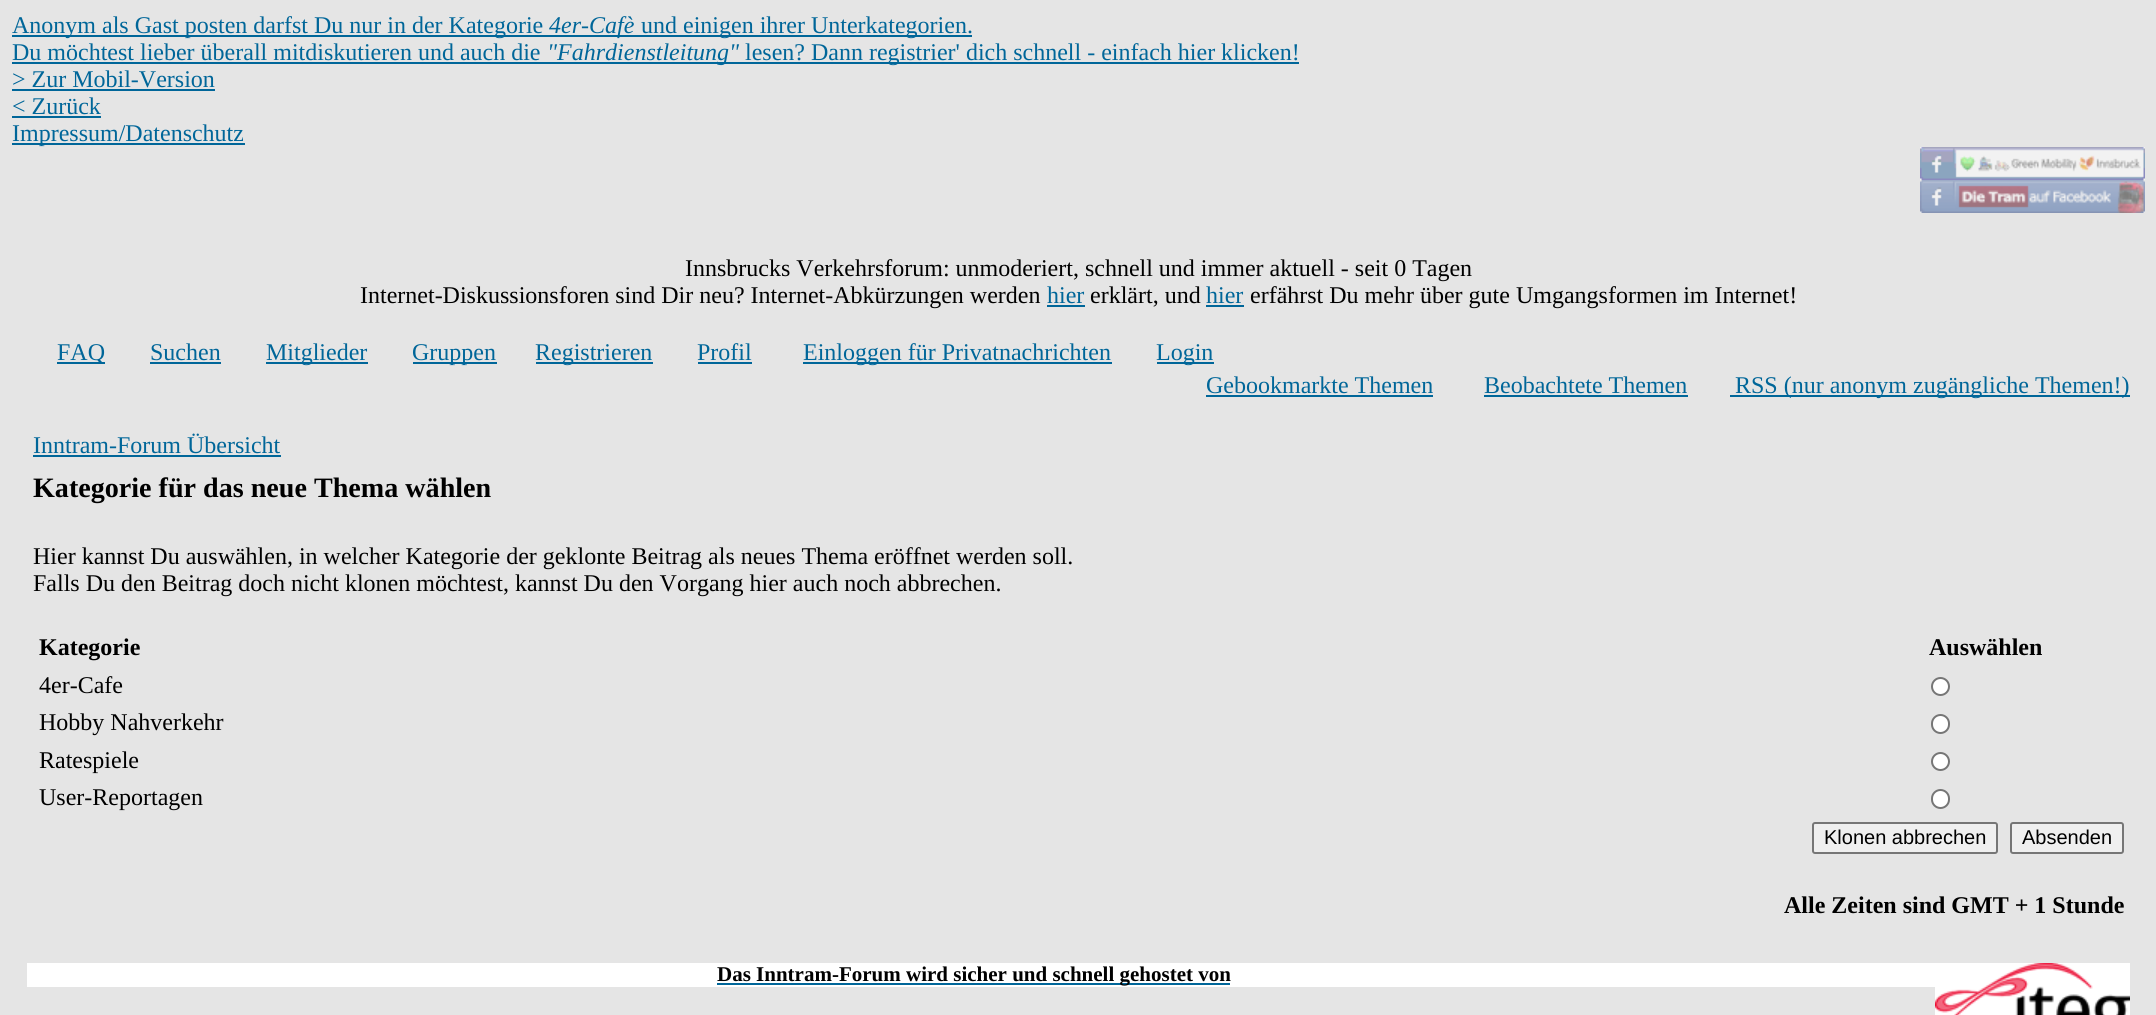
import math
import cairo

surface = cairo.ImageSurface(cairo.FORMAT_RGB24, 2156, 1015)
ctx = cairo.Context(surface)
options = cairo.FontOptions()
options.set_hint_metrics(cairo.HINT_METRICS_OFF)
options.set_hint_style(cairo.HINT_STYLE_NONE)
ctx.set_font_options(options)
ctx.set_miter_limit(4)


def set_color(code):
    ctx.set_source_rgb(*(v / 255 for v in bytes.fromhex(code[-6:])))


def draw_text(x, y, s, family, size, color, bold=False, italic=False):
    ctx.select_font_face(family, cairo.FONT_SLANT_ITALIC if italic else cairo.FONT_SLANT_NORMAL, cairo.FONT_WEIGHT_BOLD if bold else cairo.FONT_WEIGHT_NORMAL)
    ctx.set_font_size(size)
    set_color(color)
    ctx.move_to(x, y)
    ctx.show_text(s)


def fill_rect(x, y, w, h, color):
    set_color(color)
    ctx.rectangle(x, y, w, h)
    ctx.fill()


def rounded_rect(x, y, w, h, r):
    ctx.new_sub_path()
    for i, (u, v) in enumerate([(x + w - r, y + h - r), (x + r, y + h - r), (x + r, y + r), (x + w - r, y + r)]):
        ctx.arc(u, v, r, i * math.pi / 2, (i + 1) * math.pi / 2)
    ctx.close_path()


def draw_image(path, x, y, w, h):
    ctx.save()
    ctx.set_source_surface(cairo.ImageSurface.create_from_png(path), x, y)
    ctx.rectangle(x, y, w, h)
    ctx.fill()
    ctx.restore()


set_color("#e5e5e5")
ctx.paint()
fill_rect(12, 35, 960, 2, "#006699")
draw_text(12, 33, "Anonym als Gast posten darfst Du nur in der Kategorie", "Liberation Serif", 24, "#006699")
draw_text(549, 33, "4er-Cafè", "Liberation Serif", 24, "#006699", italic=True)
draw_text(641, 33, "und einigen ihrer Unterkategorien.", "Liberation Serif", 24, "#006699")
draw_text(12, 60, "Du möchtest lieber überall mitdiskutieren und auch die", "Liberation Serif", 24, "#006699")
fill_rect(12, 62, 726, 2, "#006699")
draw_text(547, 60, "\"Fahrdienstleitung\"", "Liberation Serif", 24, "#006699", italic=True)
fill_rect(738, 62, 561, 2, "#006699")
draw_text(745, 60, "lesen? Dann registrier' dich schnell - einfach hier klicken!", "Liberation Serif", 24, "#006699")
draw_text(12, 87, "> Zur Mobil-Version", "Liberation Serif", 24, "#006699")
fill_rect(12, 89, 203, 2, "#006699")
draw_text(12, 114, "< Zurück", "Liberation Serif", 24, "#006699")
fill_rect(12, 116, 89, 2, "#006699")
fill_rect(12, 143, 233, 2, "#006699")
draw_text(12, 141, "Impressum/Datenschutz", "Liberation Serif", 24, "#006699")
draw_image("assets/img1.png", 1920, 147, 225, 33)
draw_image("assets/img2.png", 1920, 180, 225, 33)
draw_text(685, 276, "Innsbrucks Verkehrsforum: unmoderiert, schnell und immer aktuell - seit 0 Tagen", "Liberation Serif", 24, "#000000")
draw_text(360, 303, "Internet-Diskussionsforen sind Dir neu? Internet-Abkürzungen werden", "Liberation Serif", 24, "#000000")
draw_text(1047, 303, "hier", "Liberation Serif", 24, "#006699")
fill_rect(1047, 305, 38, 2, "#006699")
draw_text(1090, 303, "erklärt, und", "Liberation Serif", 24, "#000000")
draw_text(1206, 303, "hier", "Liberation Serif", 24, "#006699")
fill_rect(1206, 305, 38, 2, "#006699")
draw_text(1250, 303, "erfährst Du mehr über gute Umgangsformen im Internet!", "Liberation Serif", 24, "#000000")
fill_rect(57, 362, 48, 2, "#006699")
draw_text(57, 360, "FAQ", "Liberation Serif", 24, "#006699")
draw_text(150, 360, "Suchen", "Liberation Serif", 24, "#006699")
fill_rect(150, 362, 71, 2, "#006699")
fill_rect(266, 362, 102, 2, "#006699")
draw_text(266, 360, "Mitglieder", "Liberation Serif", 24, "#006699")
fill_rect(413, 362, 84, 2, "#006699")
draw_text(412, 360, "Gruppen", "Liberation Serif", 24, "#006699")
fill_rect(536, 362, 117, 2, "#006699")
draw_text(535, 360, "Registrieren", "Liberation Serif", 24, "#006699")
draw_text(697, 360, "Profil", "Liberation Serif", 24, "#006699")
fill_rect(698, 362, 54, 2, "#006699")
fill_rect(803, 362, 309, 2, "#006699")
draw_text(803, 360, "Einloggen für Privatnachrichten", "Liberation Serif", 24, "#006699")
fill_rect(1157, 362, 57, 2, "#006699")
draw_text(1156, 360, "Login", "Liberation Serif", 24, "#006699")
draw_text(1206, 393, "Gebookmarkte Themen", "Liberation Serif", 24, "#006699")
fill_rect(1206, 395, 227, 2, "#006699")
draw_text(1484, 393, "Beobachtete Themen", "Liberation Serif", 24, "#006699")
fill_rect(1484, 395, 204, 2, "#006699")
fill_rect(1730, 395, 400, 2, "#006699")
draw_text(1735, 393, "RSS (nur anonym zugängliche Themen!)", "Liberation Serif", 24, "#006699")
draw_text(33, 453, "Inntram-Forum Übersicht", "Liberation Serif", 24, "#006699")
fill_rect(33, 455, 248, 2, "#006699")
draw_text(33, 497, "Kategorie für das neue Thema wählen", "Liberation Serif", 28.1, "#000000", bold=True)
draw_text(33, 564, "Hier kannst Du auswählen, in welcher Kategorie der geklonte Beitrag als neues Thema eröffnet werden soll.", "Liberation Serif", 24, "#000000")
draw_text(33, 591, "Falls Du den Beitrag doch nicht klonen möchtest, kannst Du den Vorgang hier auch noch abbrechen.", "Liberation Serif", 24, "#000000")
draw_text(39, 655, "Kategorie", "Liberation Serif", 24, "#000000", bold=True)
draw_text(1929, 655, "Auswählen", "Liberation Serif", 24, "#000000", bold=True)
draw_text(39, 693, "4er-Cafe", "Liberation Serif", 24, "#000000")
set_color("#ffffff")
ctx.new_path()
ctx.arc(1940.5, 686.5, 8.5, 0, 2 * math.pi)
ctx.fill_preserve()
set_color("#767676")
ctx.stroke()
draw_text(39, 730, "Hobby Nahverkehr", "Liberation Serif", 24, "#000000")
set_color("#ffffff")
rounded_rect(1932, 715, 17, 18, 8.5)
ctx.fill_preserve()
set_color("#767676")
ctx.stroke()
draw_text(39, 768, "Ratespiele", "Liberation Serif", 24, "#000000")
set_color("#ffffff")
ctx.new_path()
ctx.arc(1940.5, 761.5, 8.5, 0, 2 * math.pi)
ctx.fill_preserve()
set_color("#767676")
ctx.stroke()
draw_text(39, 805, "User-Reportagen", "Liberation Serif", 24, "#000000")
set_color("#ffffff")
rounded_rect(1932, 790, 17, 18, 8.5)
ctx.fill_preserve()
set_color("#767676")
ctx.stroke()
set_color("#efefef")
rounded_rect(1813, 823, 184, 30, 2)
ctx.fill_preserve()
set_color("#767676")
ctx.stroke()
draw_text(1824, 844, "Klonen abbrechen", "Liberation Sans", 20, "#000000")
set_color("#efefef")
rounded_rect(2011, 823, 112, 30, 2)
ctx.fill_preserve()
set_color("#767676")
ctx.stroke()
draw_text(2022, 844, "Absenden", "Liberation Sans", 20, "#000000")
draw_text(1784, 913, "Alle Zeiten sind GMT + 1 Stunde", "Liberation Serif", 24, "#000000", bold=True)
fill_rect(27, 963, 1908, 24, "#ffffff")
fill_rect(717, 983, 513, 2, "#006699")
draw_text(717, 981, "Das Inntram-Forum wird sicher und schnell gehostet von", "Liberation Serif", 21, "#000000", bold=True)
draw_image("assets/img3.png", 1935, 963, 195, 52)
surface.write_to_png("output.png")
